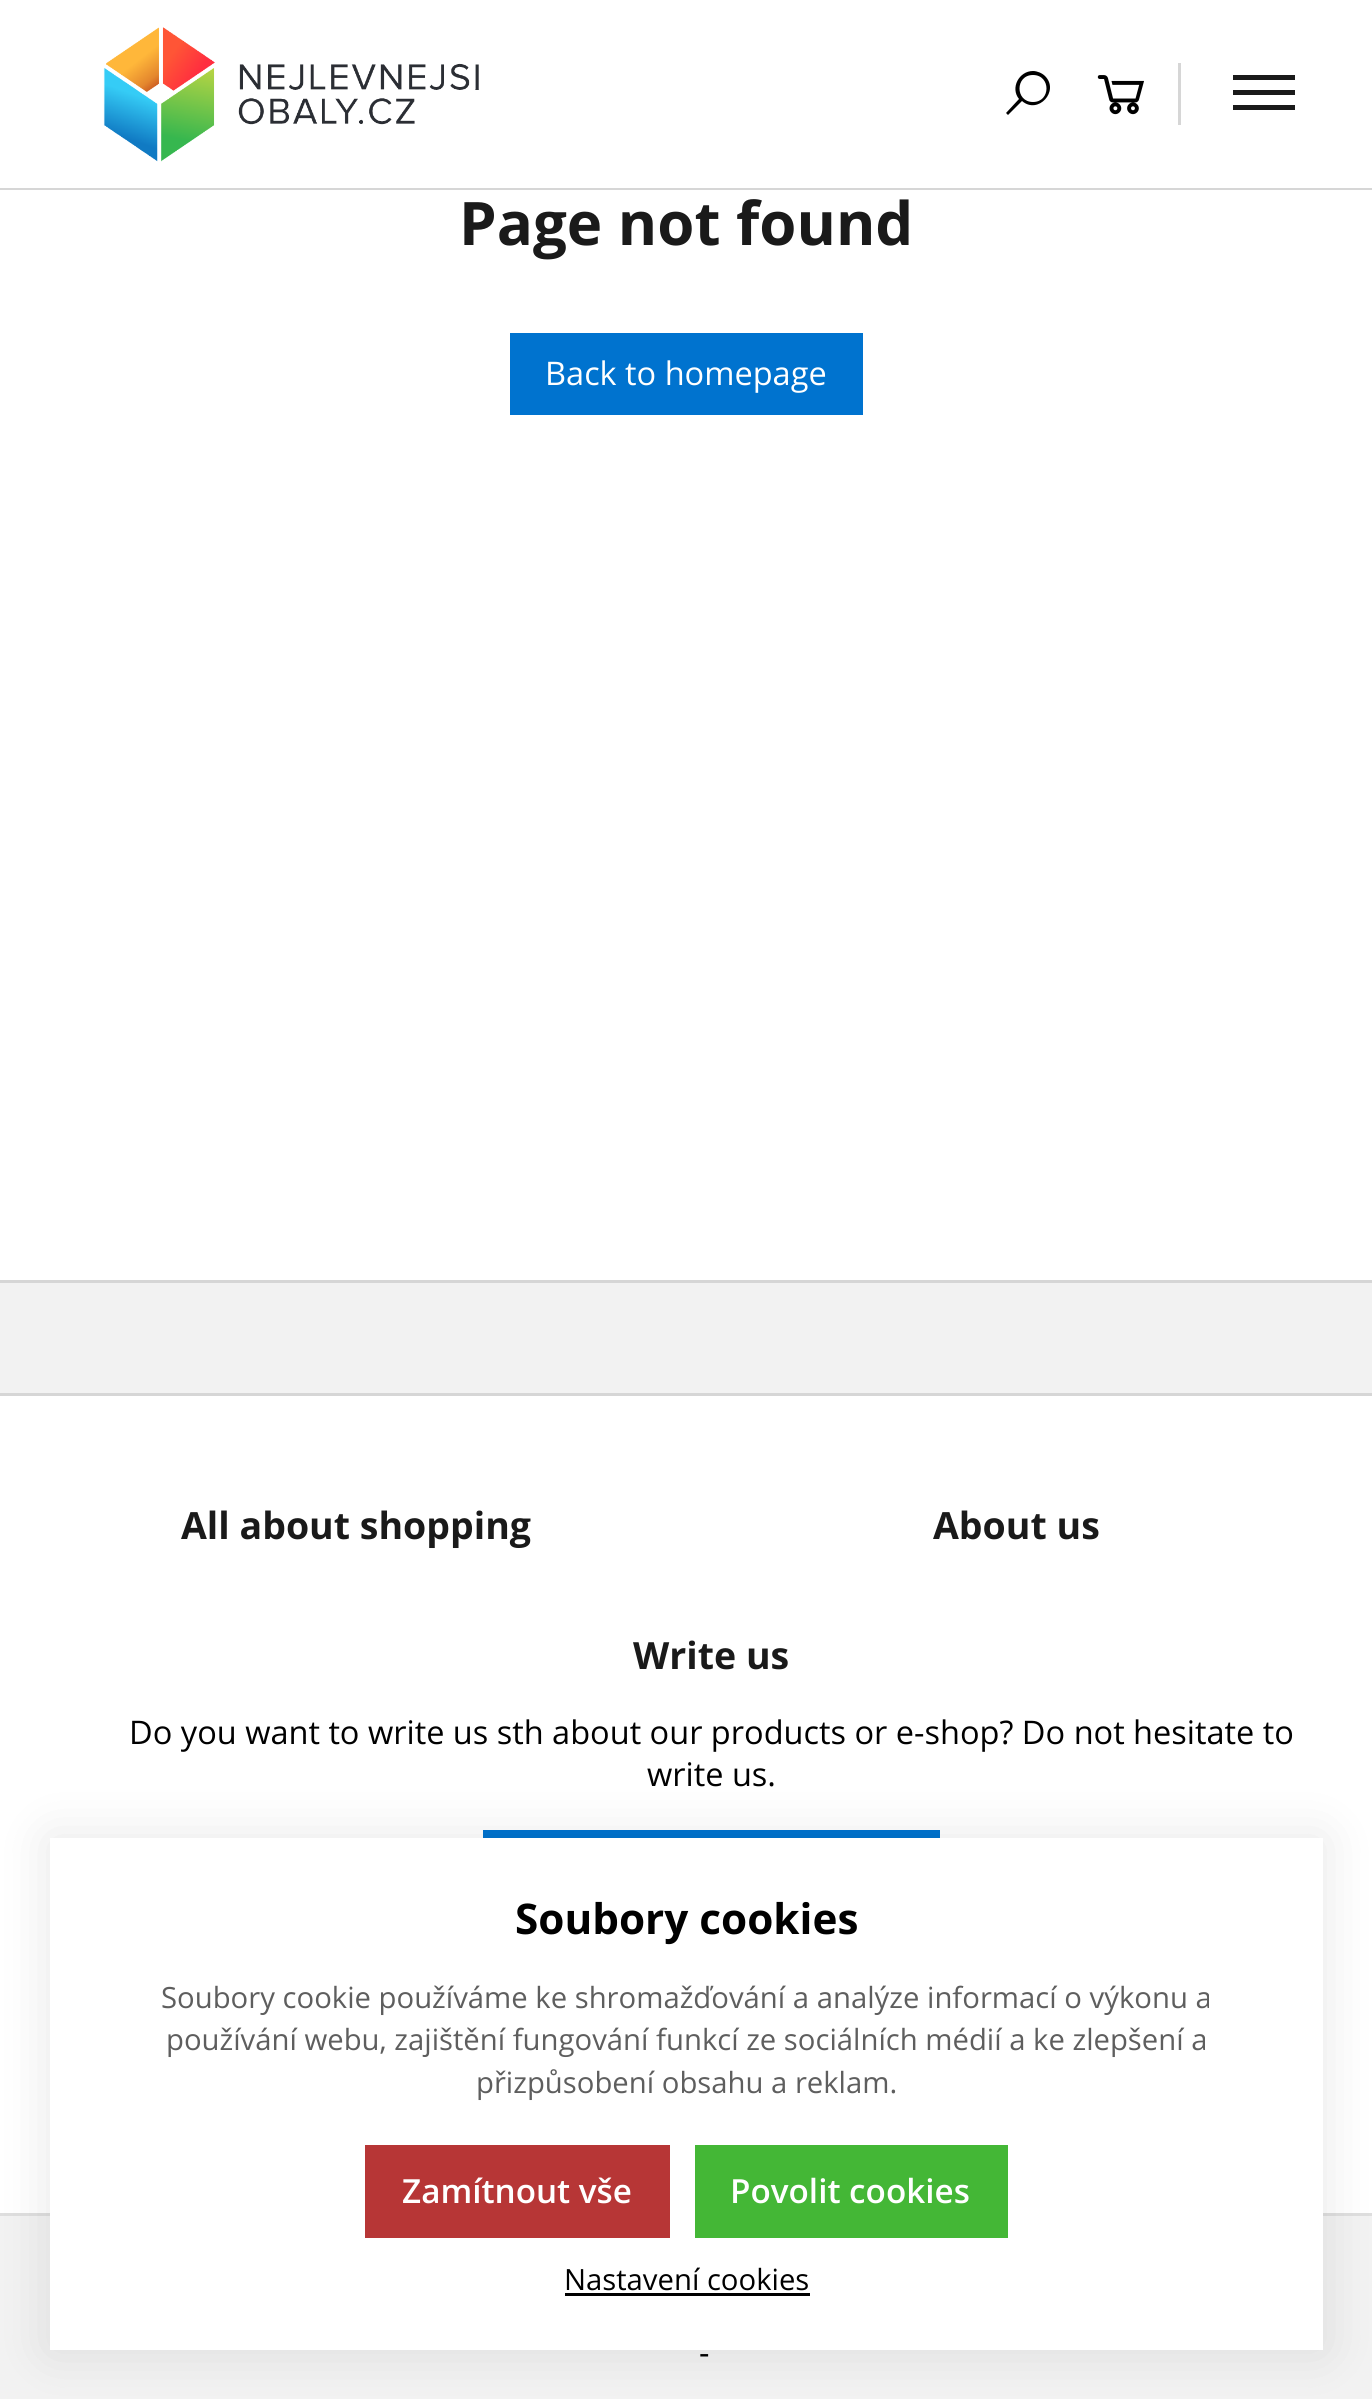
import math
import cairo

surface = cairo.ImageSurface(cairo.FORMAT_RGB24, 1372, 2399)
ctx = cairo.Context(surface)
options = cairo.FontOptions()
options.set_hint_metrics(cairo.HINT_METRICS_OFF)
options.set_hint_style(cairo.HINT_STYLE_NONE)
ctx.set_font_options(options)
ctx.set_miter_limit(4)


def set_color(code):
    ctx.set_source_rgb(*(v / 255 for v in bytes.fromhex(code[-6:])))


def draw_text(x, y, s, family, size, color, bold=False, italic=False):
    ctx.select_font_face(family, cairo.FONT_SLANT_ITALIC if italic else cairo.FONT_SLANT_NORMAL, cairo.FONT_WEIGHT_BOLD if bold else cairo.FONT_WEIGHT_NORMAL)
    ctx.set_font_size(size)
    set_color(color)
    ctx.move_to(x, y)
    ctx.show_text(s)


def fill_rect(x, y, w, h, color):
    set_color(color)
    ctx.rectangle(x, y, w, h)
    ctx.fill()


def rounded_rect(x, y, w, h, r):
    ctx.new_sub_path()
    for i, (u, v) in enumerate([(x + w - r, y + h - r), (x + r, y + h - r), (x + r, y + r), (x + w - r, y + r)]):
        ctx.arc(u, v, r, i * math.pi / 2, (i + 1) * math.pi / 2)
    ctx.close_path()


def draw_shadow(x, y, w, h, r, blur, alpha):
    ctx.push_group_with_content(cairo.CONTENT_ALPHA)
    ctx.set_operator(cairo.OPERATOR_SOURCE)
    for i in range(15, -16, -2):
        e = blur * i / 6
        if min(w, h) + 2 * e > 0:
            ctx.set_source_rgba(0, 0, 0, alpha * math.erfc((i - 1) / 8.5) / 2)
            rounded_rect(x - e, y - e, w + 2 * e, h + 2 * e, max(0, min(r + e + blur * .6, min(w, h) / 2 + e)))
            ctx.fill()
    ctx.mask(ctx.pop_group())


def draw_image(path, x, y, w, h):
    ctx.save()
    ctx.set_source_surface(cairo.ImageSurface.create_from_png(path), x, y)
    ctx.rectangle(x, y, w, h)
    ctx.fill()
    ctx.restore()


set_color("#ffffff")
ctx.paint()
draw_image("assets/img1.png", 103, 27, 376, 135)
set_color("#000000")
ctx.new_path()
ctx.move_to(1033, 71)
ctx.curve_to(1019, 71, 1010, 88, 1019, 99)
ctx.line_to(1006, 113)
ctx.line_to(1008, 115)
ctx.line_to(1022, 101)
ctx.curve_to(1038, 115, 1060, 91, 1045, 76)
ctx.curve_to(1042, 73, 1037, 71, 1033, 71)
ctx.close_path()
ctx.move_to(1033, 102)
ctx.curve_to(1015, 102, 1015, 75, 1033, 75)
ctx.curve_to(1051, 75, 1051, 102, 1033, 102)
ctx.close_path()
ctx.fill()
fill_rect(1178, 63, 3, 62, "#d6d6d6")
draw_image("assets/img2.png", 1097, 75, 47, 40)
fill_rect(1233, 75, 62, 5, "#1a1a1a")
fill_rect(1233, 90, 62, 5, "#1a1a1a")
fill_rect(1233, 105, 62, 5, "#1a1a1a")
set_color("#d6d6d6")
ctx.new_path()
ctx.move_to(0, 188)
ctx.line_to(0, 190)
ctx.line_to(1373, 190)
ctx.line_to(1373, 3)
ctx.line_to(1372, 3)
ctx.line_to(1372, 188)
ctx.close_path()
ctx.fill()
draw_text(459, 245, "Page not found", "Open Sans", 60, "#1a1a1a", bold=True)
fill_rect(510, 333, 353, 82, "#0073cf")
draw_text(545, 385, "Back to homepage", "Open Sans", 32.5, "#ffffff")
fill_rect(0, 1283, 1372, 110, "#f2f2f2")
fill_rect(0, 1280, 1372, 3, "#d6d6d6")
fill_rect(0, 1393, 1372, 3, "#d6d6d6")
draw_text(181, 1539, "All about shopping", "Open Sans", 37.5, "#1a1a1a", bold=True)
draw_text(933, 1539, "About us", "Open Sans", 37.5, "#1a1a1a", bold=True)
draw_text(633, 1669, "Write us", "Open Sans", 37.5, "#1a1a1a", bold=True)
draw_text(129, 1744, "Do you want to write us sth about our products or e-shop? Do not hesitate to", "Open Sans", 32.5, "#000000")
draw_text(647, 1786, "write us.", "Open Sans", 32.5, "#000000")
fill_rect(483, 1830, 457, 8, "#0073cf")
fill_rect(0, 2216, 1372, 183, "#f2f2f2")
fill_rect(0, 2213, 1372, 3, "#dedede")
draw_text(699, 2364, "-", "Open Sans", 32.5, "#000000")
set_color("#000000")
draw_shadow(50, 1838, 1273, 512, 0, 25, 0.1)
fill_rect(50, 1838, 1273, 512, "#ffffff")
draw_text(515, 1934, "Soubory cookies", "Open Sans", 42.25, "#000000", bold=True)
draw_text(161, 2008, "Soubory cookie používáme ke shromažďování a analýze informací o výkonu a", "Open Sans", 29.25, "#5e5e5e")
draw_text(166, 2050, "používání webu, zajištění fungování funkcí ze sociálních médií a ke zlepšení a", "Open Sans", 29.25, "#5e5e5e")
draw_text(476, 2093, "přizpůsobení obsahu a reklam.", "Open Sans", 29.25, "#5e5e5e")
fill_rect(365, 2145, 305, 93, "#b73636")
draw_text(402, 2203, "Zamítnout vše", "Open Sans SemiBold", 33.25, "#ffffff")
fill_rect(695, 2145, 313, 93, "#44b736")
draw_text(730, 2203, "Povolit cookies", "Open Sans SemiBold", 33.25, "#ffffff")
draw_text(564, 2290, "Nastavení cookies", "Open Sans", 29.25, "#000000")
fill_rect(565, 2293, 245, 3, "#000000")
surface.write_to_png("output.png")
